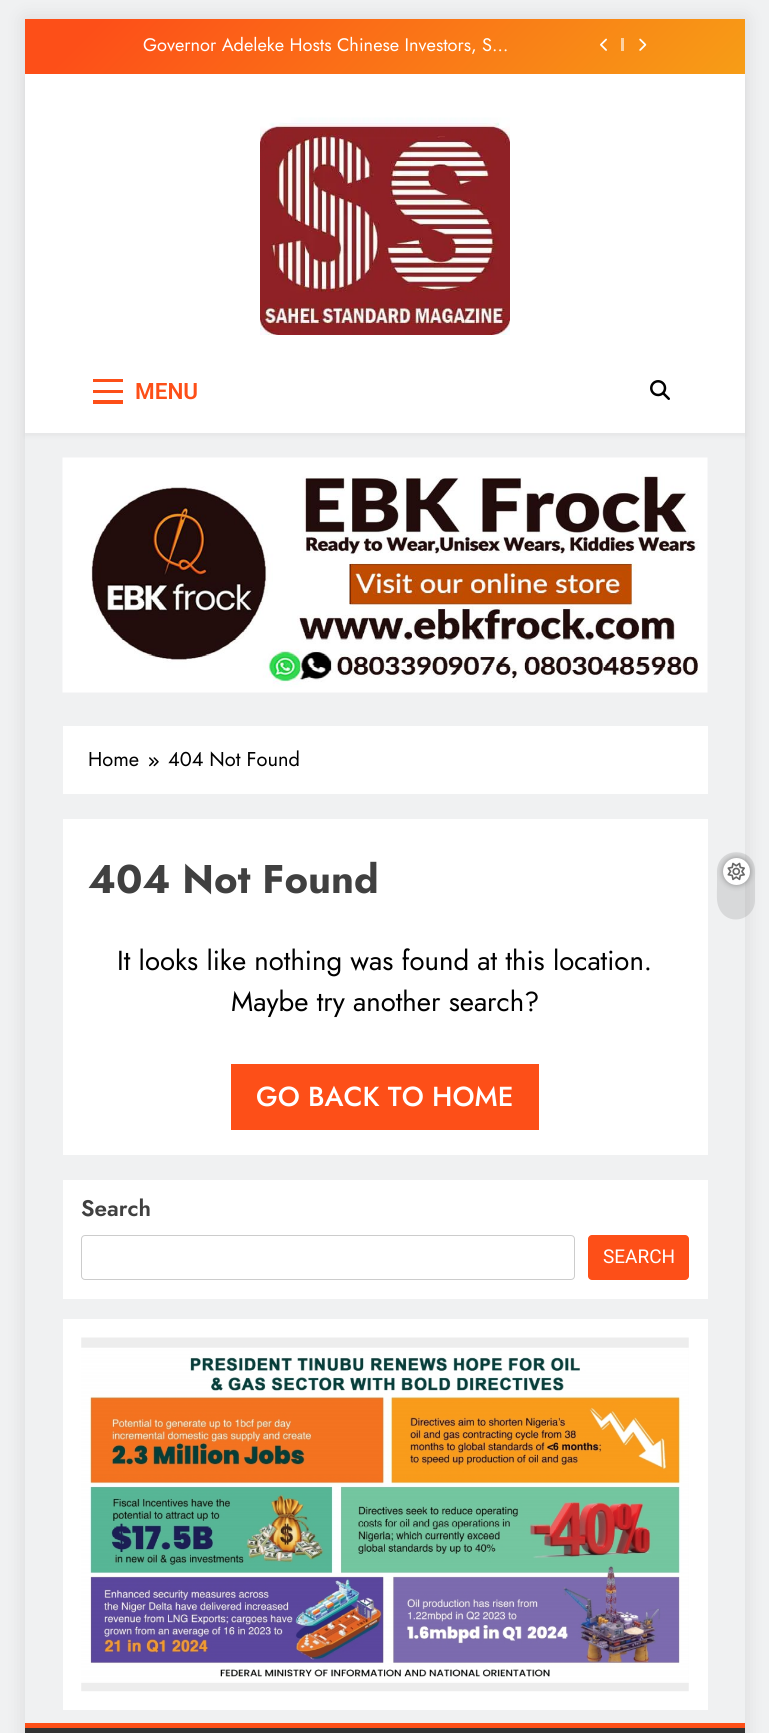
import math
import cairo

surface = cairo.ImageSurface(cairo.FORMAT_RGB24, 769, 1733)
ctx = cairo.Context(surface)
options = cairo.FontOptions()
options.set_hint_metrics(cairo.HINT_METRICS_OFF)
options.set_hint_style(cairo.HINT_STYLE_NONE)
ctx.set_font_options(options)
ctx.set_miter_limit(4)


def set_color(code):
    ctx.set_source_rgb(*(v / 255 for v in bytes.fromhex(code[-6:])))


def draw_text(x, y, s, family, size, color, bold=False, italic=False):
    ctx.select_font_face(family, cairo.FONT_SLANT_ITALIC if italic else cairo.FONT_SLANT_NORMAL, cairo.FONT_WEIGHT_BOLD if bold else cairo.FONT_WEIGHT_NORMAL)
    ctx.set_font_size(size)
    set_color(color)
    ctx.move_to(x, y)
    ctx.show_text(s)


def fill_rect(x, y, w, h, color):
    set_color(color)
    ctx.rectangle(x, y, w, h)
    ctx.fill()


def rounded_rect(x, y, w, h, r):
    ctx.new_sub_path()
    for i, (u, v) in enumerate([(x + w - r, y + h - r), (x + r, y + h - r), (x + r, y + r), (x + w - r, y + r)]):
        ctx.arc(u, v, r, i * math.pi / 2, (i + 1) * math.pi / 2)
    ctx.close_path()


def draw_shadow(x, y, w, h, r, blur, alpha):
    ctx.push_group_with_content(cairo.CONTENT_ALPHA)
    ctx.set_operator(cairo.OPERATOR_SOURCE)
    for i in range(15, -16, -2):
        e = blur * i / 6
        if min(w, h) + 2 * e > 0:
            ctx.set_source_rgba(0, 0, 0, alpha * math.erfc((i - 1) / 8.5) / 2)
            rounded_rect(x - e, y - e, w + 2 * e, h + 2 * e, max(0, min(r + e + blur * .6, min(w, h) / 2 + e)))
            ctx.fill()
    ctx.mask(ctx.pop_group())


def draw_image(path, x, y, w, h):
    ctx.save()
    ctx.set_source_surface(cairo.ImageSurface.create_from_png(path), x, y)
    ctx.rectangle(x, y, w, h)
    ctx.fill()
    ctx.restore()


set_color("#f0f1f2")
ctx.paint()
ctx.save()
ctx.set_fill_rule(cairo.FILL_RULE_EVEN_ODD)
ctx.new_path()
ctx.move_to(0, 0)
ctx.line_to(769, 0)
ctx.line_to(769, 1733)
ctx.line_to(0, 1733)
ctx.close_path()
ctx.move_to(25, 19)
ctx.line_to(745, 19)
ctx.line_to(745, 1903)
ctx.line_to(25, 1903)
ctx.close_path()
ctx.clip()
set_color("#000000")
draw_shadow(25, 19, 720, 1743, 0, 9.5, 0.1)
ctx.restore()
gradient = cairo.LinearGradient(191, -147, 579, 240)
gradient.add_color_stop_rgba(0.1, 0.992, 0.31, 0.094, 1)
gradient.add_color_stop_rgba(1, 0.969, 0.616, 0.086, 1)
ctx.set_source(gradient)
ctx.rectangle(25, 19, 720, 55)
ctx.fill()
draw_text(143, 51, "Governor Adeleke Hosts Chinese Investors, S…", "Jost", 18.15, "#ffffff")
draw_image("assets/img1.png", 600, 38, 7, 13)
fill_rect(621, 38, 3, 13, "#fcd1a2")
draw_image("assets/img2.png", 639, 38, 8, 13)
set_color("#000000")
draw_shadow(25, 78, 720, 358, 0, 2.5, 0.05)
fill_rect(25, 74, 720, 359, "#ffffff")
draw_image("assets/img3.png", 260, 117, 250, 218)
fill_rect(93, 379, 30, 3, "#fd4f18")
fill_rect(93, 390, 30, 3, "#fd4f18")
fill_rect(93, 400, 30, 4, "#fd4f18")
draw_text(135, 399, "MENU", "Roboto SemiBold", 22.5, "#fd4f18")
draw_image("assets/img4.png", 650, 380, 20, 20)
ctx.set_source_rgba(0, 0, 0, 0.1)
ctx.new_path()
ctx.move_to(755, 871)
ctx.line_to(755, 901)
ctx.curve_to(754, 921, 727, 927, 719, 908)
ctx.curve_to(716, 902, 717, 893, 717, 886)
ctx.line_to(717, 871)
ctx.curve_to(718, 846, 755, 846, 755, 871)
ctx.close_path()
ctx.fill()
set_color("#000000")
draw_shadow(723, 858, 27, 27, 13.5, 3, 0.35)
set_color("#ffffff")
ctx.arc(736.5, 871.5, 13.5, 0, 2 * math.pi)
ctx.fill()
draw_image("assets/img5.png", 727, 862, 18, 19)
draw_image("assets/img6.png", 62, 457, 646, 236)
fill_rect(63, 726, 645, 68, "#ffffff")
draw_text(88, 766, "Home", "Jost", 20, "#000000")
draw_image("assets/img7.png", 149, 757, 10, 10)
draw_text(168, 766, "404 Not Found", "Jost", 20, "#000000")
fill_rect(63, 819, 645, 336, "#ffffff")
draw_text(88, 893, "404 Not Found", "Jost", 40, "#404040", bold=True)
draw_text(117, 970, "It looks like nothing was found at this location.", "Jost", 27.5, "#000000")
draw_text(231, 1011, "Maybe try another search?", "Jost", 27.5, "#000000")
fill_rect(231, 1064, 308, 66, "#fd4f18")
draw_text(256, 1106, "GO BACK TO HOME", "Jost Medium", 27.5, "#ffffff")
fill_rect(63, 1180, 645, 119, "#ffffff")
draw_text(81, 1216, "Search", "Jost SemiBold", 22.5, "#404040")
rounded_rect(81.5, 1235.5, 493, 44, 3.5)
set_color("#cccccc")
ctx.set_line_width(1)
ctx.stroke()
set_color("#fd4f18")
rounded_rect(588, 1235, 101, 45, 4)
ctx.fill()
draw_text(603, 1263, "SEARCH", "Roboto", 19, "#ffffff")
fill_rect(63, 1319, 645, 391, "#ffffff")
draw_image("assets/img8.png", 81, 1337, 608, 355)
fill_rect(25, 1723, 720, 5, "#fd4f18")
fill_rect(25, 1728, 720, 5, "#333333")
surface.write_to_png("output.png")
